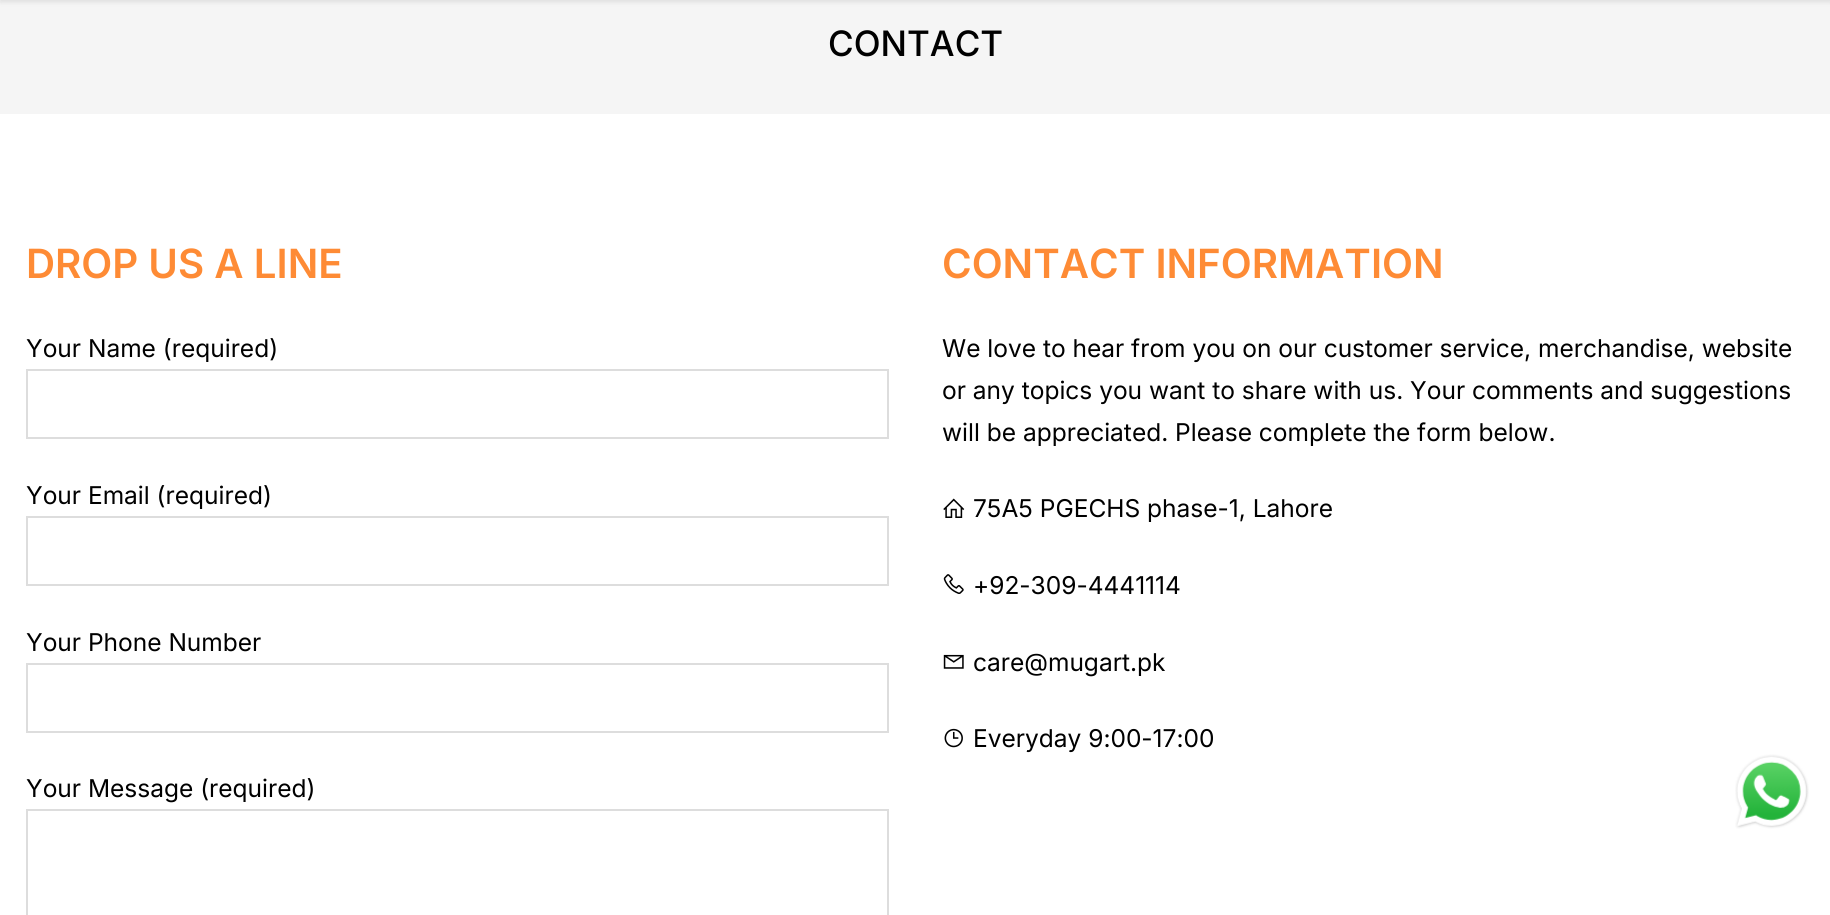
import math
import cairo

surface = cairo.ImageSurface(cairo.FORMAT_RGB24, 1830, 915)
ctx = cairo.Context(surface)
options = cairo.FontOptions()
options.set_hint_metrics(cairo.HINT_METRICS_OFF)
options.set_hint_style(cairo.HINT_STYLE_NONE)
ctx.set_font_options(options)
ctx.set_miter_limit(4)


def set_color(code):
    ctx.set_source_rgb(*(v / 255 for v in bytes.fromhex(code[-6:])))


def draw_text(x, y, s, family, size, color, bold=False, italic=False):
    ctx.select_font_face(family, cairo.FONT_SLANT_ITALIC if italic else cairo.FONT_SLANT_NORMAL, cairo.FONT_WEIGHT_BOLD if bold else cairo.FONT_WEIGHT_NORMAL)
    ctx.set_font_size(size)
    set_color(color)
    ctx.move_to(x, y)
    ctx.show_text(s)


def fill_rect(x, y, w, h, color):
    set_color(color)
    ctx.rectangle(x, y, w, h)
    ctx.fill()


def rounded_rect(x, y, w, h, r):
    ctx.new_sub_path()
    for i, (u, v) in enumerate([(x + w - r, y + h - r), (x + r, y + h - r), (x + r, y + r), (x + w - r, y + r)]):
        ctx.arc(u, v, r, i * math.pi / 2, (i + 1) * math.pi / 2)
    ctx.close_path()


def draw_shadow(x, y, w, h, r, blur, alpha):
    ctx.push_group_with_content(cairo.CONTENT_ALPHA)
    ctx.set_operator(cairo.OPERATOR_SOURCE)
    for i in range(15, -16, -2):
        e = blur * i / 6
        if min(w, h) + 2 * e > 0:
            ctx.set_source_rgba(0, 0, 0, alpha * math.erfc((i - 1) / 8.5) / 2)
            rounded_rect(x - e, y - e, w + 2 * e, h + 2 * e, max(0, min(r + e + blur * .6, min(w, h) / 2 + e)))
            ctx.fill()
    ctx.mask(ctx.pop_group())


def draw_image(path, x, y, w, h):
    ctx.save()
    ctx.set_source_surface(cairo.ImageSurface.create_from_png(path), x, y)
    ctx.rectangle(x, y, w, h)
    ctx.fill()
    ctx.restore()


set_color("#ffffff")
ctx.paint()
fill_rect(0, 0, 1830, 114, "#f5f5f5")
set_color("#000000")
draw_shadow(0, -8, 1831, 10, 0, 2.5, 0.1)
draw_text(828, 56, "CONTACT", "Inter Medium", 35, "#000000")
draw_text(26, 278, "DROP US A LINE", "Inter SemiBold", 40.25, "#fe8b35")
draw_text(26, 357, "Your Name (required)", "Inter", 24.5, "#000000")
ctx.rectangle(27, 370, 861, 68)
set_color("#dddddd")
ctx.stroke()
draw_text(26, 504, "Your Email (required)", "Inter", 24.5, "#000000")
ctx.rectangle(27, 517, 861, 68)
set_color("#dddddd")
ctx.stroke()
draw_text(26, 651, "Your Phone Number", "Inter", 24.5, "#000000")
ctx.rectangle(27, 664, 861, 68)
set_color("#dddddd")
ctx.stroke()
draw_text(26, 797, "Your Message (required)", "Inter", 24.5, "#000000")
ctx.rectangle(27, 810, 861, 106)
set_color("#dddddd")
ctx.stroke()
draw_text(942, 278, "CONTACT INFORMATION", "Inter SemiBold", 40.25, "#fe8b35")
draw_text(942, 357, "We love to hear from you on our customer service, merchandise, website", "Inter", 24.5, "#000000")
draw_text(942, 399, "or any topics you want to share with us. Your comments and suggestions", "Inter", 24.5, "#000000")
draw_text(942, 441, "will be appreciated. Please complete the form below.", "Inter", 24.5, "#000000")
draw_image("assets/img1.png", 943, 498, 22, 20)
draw_text(973, 517, "75A5 PGECHS phase-1, Lahore", "Inter", 24.5, "#000000")
draw_image("assets/img2.png", 943, 574, 21, 20)
draw_text(973, 594, "+92-309-4441114", "Inter", 24.5, "#000000")
draw_image("assets/img3.png", 943, 654, 21, 15)
draw_text(973, 671, "care@mugart.pk", "Inter", 24.5, "#000000")
draw_image("assets/img4.png", 944, 728, 19, 20)
draw_text(973, 747, "Everyday 9:00-17:00", "Inter", 24.5, "#000000")
draw_image("assets/img5.png", 1735, 754, 74, 75)
surface.write_to_png("output.png")
